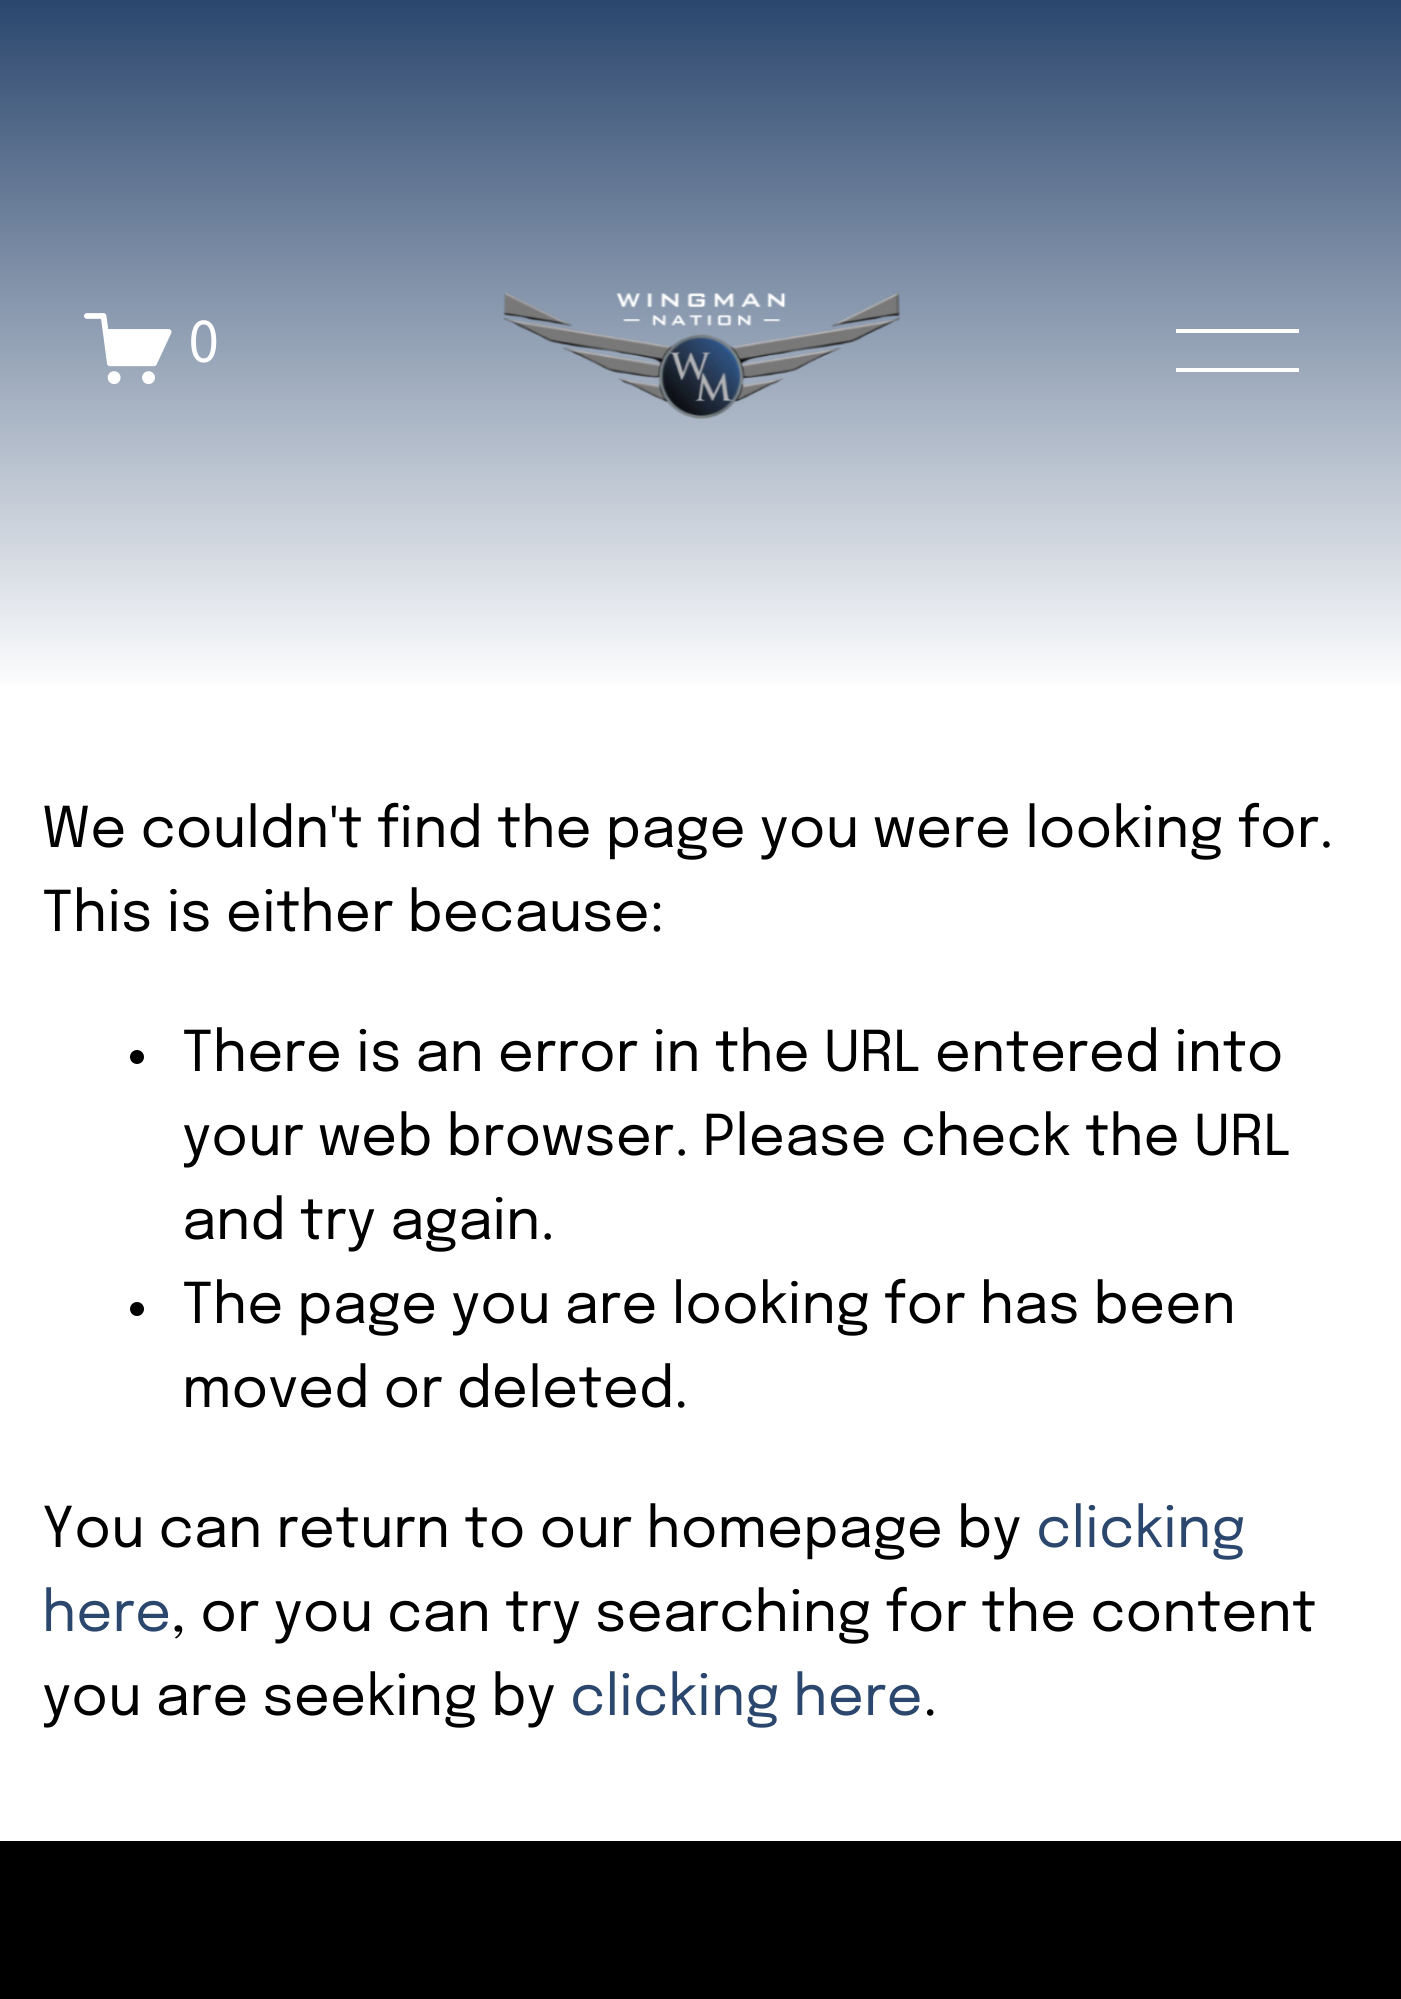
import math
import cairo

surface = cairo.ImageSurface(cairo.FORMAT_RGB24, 1401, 1999)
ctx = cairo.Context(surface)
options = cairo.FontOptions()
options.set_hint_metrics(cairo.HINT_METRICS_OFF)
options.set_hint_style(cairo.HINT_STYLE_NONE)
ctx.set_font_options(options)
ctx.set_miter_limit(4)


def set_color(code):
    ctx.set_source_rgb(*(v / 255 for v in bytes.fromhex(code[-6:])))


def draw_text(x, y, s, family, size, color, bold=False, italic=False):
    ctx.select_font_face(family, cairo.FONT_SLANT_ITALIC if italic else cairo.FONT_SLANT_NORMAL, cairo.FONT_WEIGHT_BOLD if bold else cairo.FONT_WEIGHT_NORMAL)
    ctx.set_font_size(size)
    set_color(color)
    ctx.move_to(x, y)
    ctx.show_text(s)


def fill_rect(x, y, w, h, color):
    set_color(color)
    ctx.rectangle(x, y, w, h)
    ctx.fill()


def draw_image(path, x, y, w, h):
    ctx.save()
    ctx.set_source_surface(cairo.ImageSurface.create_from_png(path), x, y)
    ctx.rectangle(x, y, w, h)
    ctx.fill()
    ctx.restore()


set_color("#ffffff")
ctx.paint()
gradient = cairo.LinearGradient(702, 0, 702, 693)
gradient.add_color_stop_rgba(0, 0.169, 0.278, 0.431, 1)
gradient.add_color_stop_rgba(1, 1, 1, 1, 1)
ctx.set_source(gradient)
ctx.rectangle(0, 0, 1401, 685)
ctx.fill()
draw_image("assets/img1.png", 84, 313, 88, 72)
draw_text(188, 362, "0", "Epilogue", 56, "#ffffff")
draw_image("assets/img2.png", 503, 292, 398, 127)
fill_rect(1176, 329, 123, 4, "#ffffff")
fill_rect(1176, 368, 123, 4, "#ffffff")
draw_text(42, 847, "We couldn't find the page you were looking for.", "Epilogue", 56, "#000000")
draw_text(42, 931, "This is either because:", "Epilogue", 56, "#000000")
ctx.new_path()
ctx.arc(137, 1057, 7, 0, 2 * math.pi)
ctx.fill()
draw_text(182, 1071, "There is an error in the URL entered into", "Epilogue", 56, "#000000")
draw_text(182, 1155, "your web browser. Please check the URL", "Epilogue", 56, "#000000")
draw_text(182, 1239, "and try again.", "Epilogue", 56, "#000000")
ctx.new_path()
ctx.arc(137, 1309, 7, 0, 2 * math.pi)
ctx.fill()
draw_text(182, 1323, "The page you are looking for has been", "Epilogue", 56, "#000000")
draw_text(182, 1407, "moved or deleted.", "Epilogue", 56, "#000000")
draw_text(42, 1547, "You can return to our homepage by", "Epilogue", 56, "#000000")
draw_text(1036, 1547, "clicking", "Epilogue", 56, "#2b476e")
draw_text(42, 1631, "here", "Epilogue", 56, "#2b476e")
draw_text(171, 1631, ", or you can try searching for the content", "Epilogue", 56, "#000000")
draw_text(42, 1715, "you are seeking by", "Epilogue", 56, "#000000")
draw_text(570, 1715, "clicking here", "Epilogue", 56, "#2b476e")
draw_text(923, 1715, ".", "Epilogue", 56, "#000000")
fill_rect(0, 1841, 1401, 158, "#000000")
surface.write_to_png("output.png")
